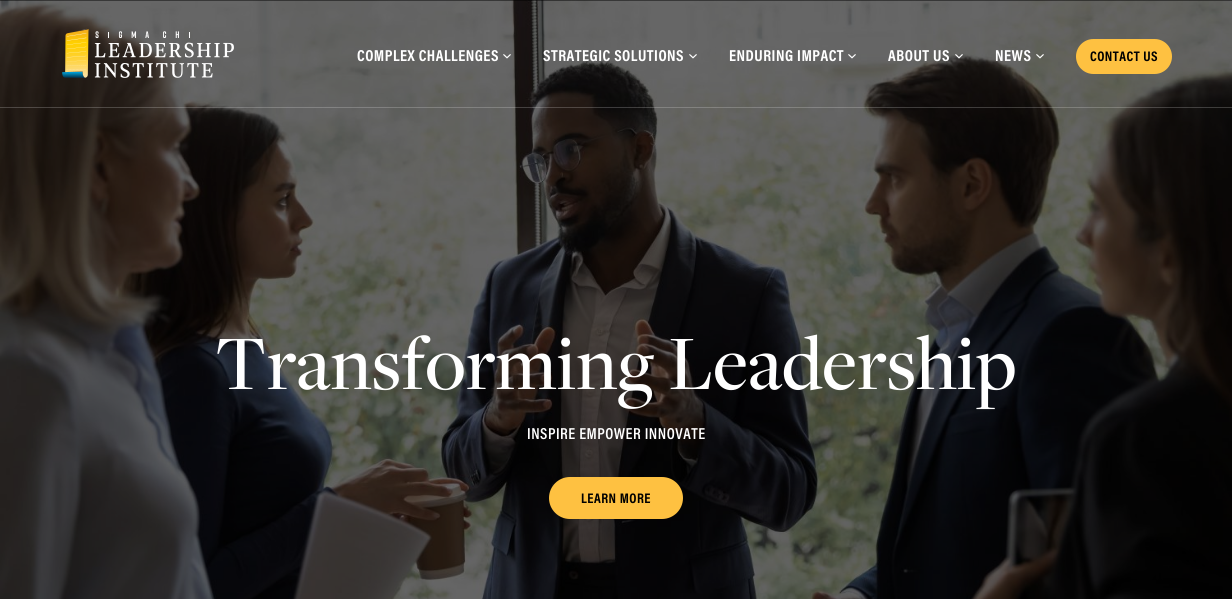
import math
import cairo

surface = cairo.ImageSurface(cairo.FORMAT_RGB24, 1232, 599)
ctx = cairo.Context(surface)
options = cairo.FontOptions()
options.set_hint_metrics(cairo.HINT_METRICS_OFF)
options.set_hint_style(cairo.HINT_STYLE_NONE)
ctx.set_font_options(options)
ctx.set_miter_limit(4)


def set_color(code):
    ctx.set_source_rgb(*(v / 255 for v in bytes.fromhex(code[-6:])))


def draw_text(x, y, s, family, size, color, bold=False, italic=False):
    ctx.select_font_face(family, cairo.FONT_SLANT_ITALIC if italic else cairo.FONT_SLANT_NORMAL, cairo.FONT_WEIGHT_BOLD if bold else cairo.FONT_WEIGHT_NORMAL)
    ctx.set_font_size(size)
    set_color(color)
    ctx.move_to(x, y)
    ctx.show_text(s)


def draw_spaced(x, y, s, letter, word):
    ctx.move_to(x, y)
    for ch in s:
        ctx.show_text(ch)
        ctx.rel_move_to(letter + word * (ch == ' '), 0)


def rounded_rect(x, y, w, h, r):
    ctx.new_sub_path()
    for i, (u, v) in enumerate([(x + w - r, y + h - r), (x + r, y + h - r), (x + r, y + r), (x + w - r, y + r)]):
        ctx.arc(u, v, r, i * math.pi / 2, (i + 1) * math.pi / 2)
    ctx.close_path()


def draw_image(path, x, y, w, h):
    ctx.save()
    ctx.set_source_surface(cairo.ImageSurface.create_from_png(path), x, y)
    ctx.rectangle(x, y, w, h)
    ctx.fill()
    ctx.restore()


set_color("#000000")
ctx.paint()
draw_image("assets/img7.png", 0, 0, 1232, 599)
ctx.set_source_rgba(1, 1, 1, 0.2)
ctx.rectangle(0, 107, 1232, 1)
ctx.fill()
draw_image("assets/img1.png", 62, 28, 172, 50)
ctx.select_font_face("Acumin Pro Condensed", cairo.FONT_SLANT_NORMAL, cairo.FONT_WEIGHT_BOLD)
ctx.set_font_size(16)
set_color("#ffffff")
draw_spaced(357, 61, "COMPLEX CHALLENGES", 0.5, 0)
draw_image("assets/img2.png", 503, 54, 8, 5)
draw_spaced(543, 61, "STRATEGIC SOLUTIONS", 0.5, 0)
draw_image("assets/img3.png", 689, 54, 8, 5)
draw_spaced(729, 61, "ENDURING IMPACT", 0.5, 0)
draw_image("assets/img4.png", 848, 54, 8, 5)
draw_spaced(888, 61, "ABOUT US", 0.5, 0)
draw_image("assets/img5.png", 955, 54, 8, 5)
draw_spaced(995, 61, "NEWS", 0.5, 0)
draw_image("assets/img6.png", 1036, 54, 8, 5)
set_color("#fec141")
rounded_rect(1076, 39, 96, 35, 17.5)
ctx.fill()
ctx.set_font_size(14)
set_color("#000000")
draw_spaced(1090, 61, "CONTACT US", 0.5, 0)
draw_text(215, 389, "Transforming Leadership", "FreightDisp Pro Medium", 80, "#ffffff")
ctx.select_font_face("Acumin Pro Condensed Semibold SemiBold")
ctx.set_font_size(16)
draw_spaced(527, 439, "INSPIRE EMPOWER INNOVATE", 0.5, 0)
set_color("#fec141")
rounded_rect(549, 477, 134, 42, 21)
ctx.fill()
ctx.select_font_face("Acumin Pro Condensed", cairo.FONT_SLANT_NORMAL, cairo.FONT_WEIGHT_BOLD)
ctx.set_font_size(14)
set_color("#000000")
draw_spaced(581, 503, "LEARN MORE", 0.5, 0)
surface.write_to_png("output.png")
